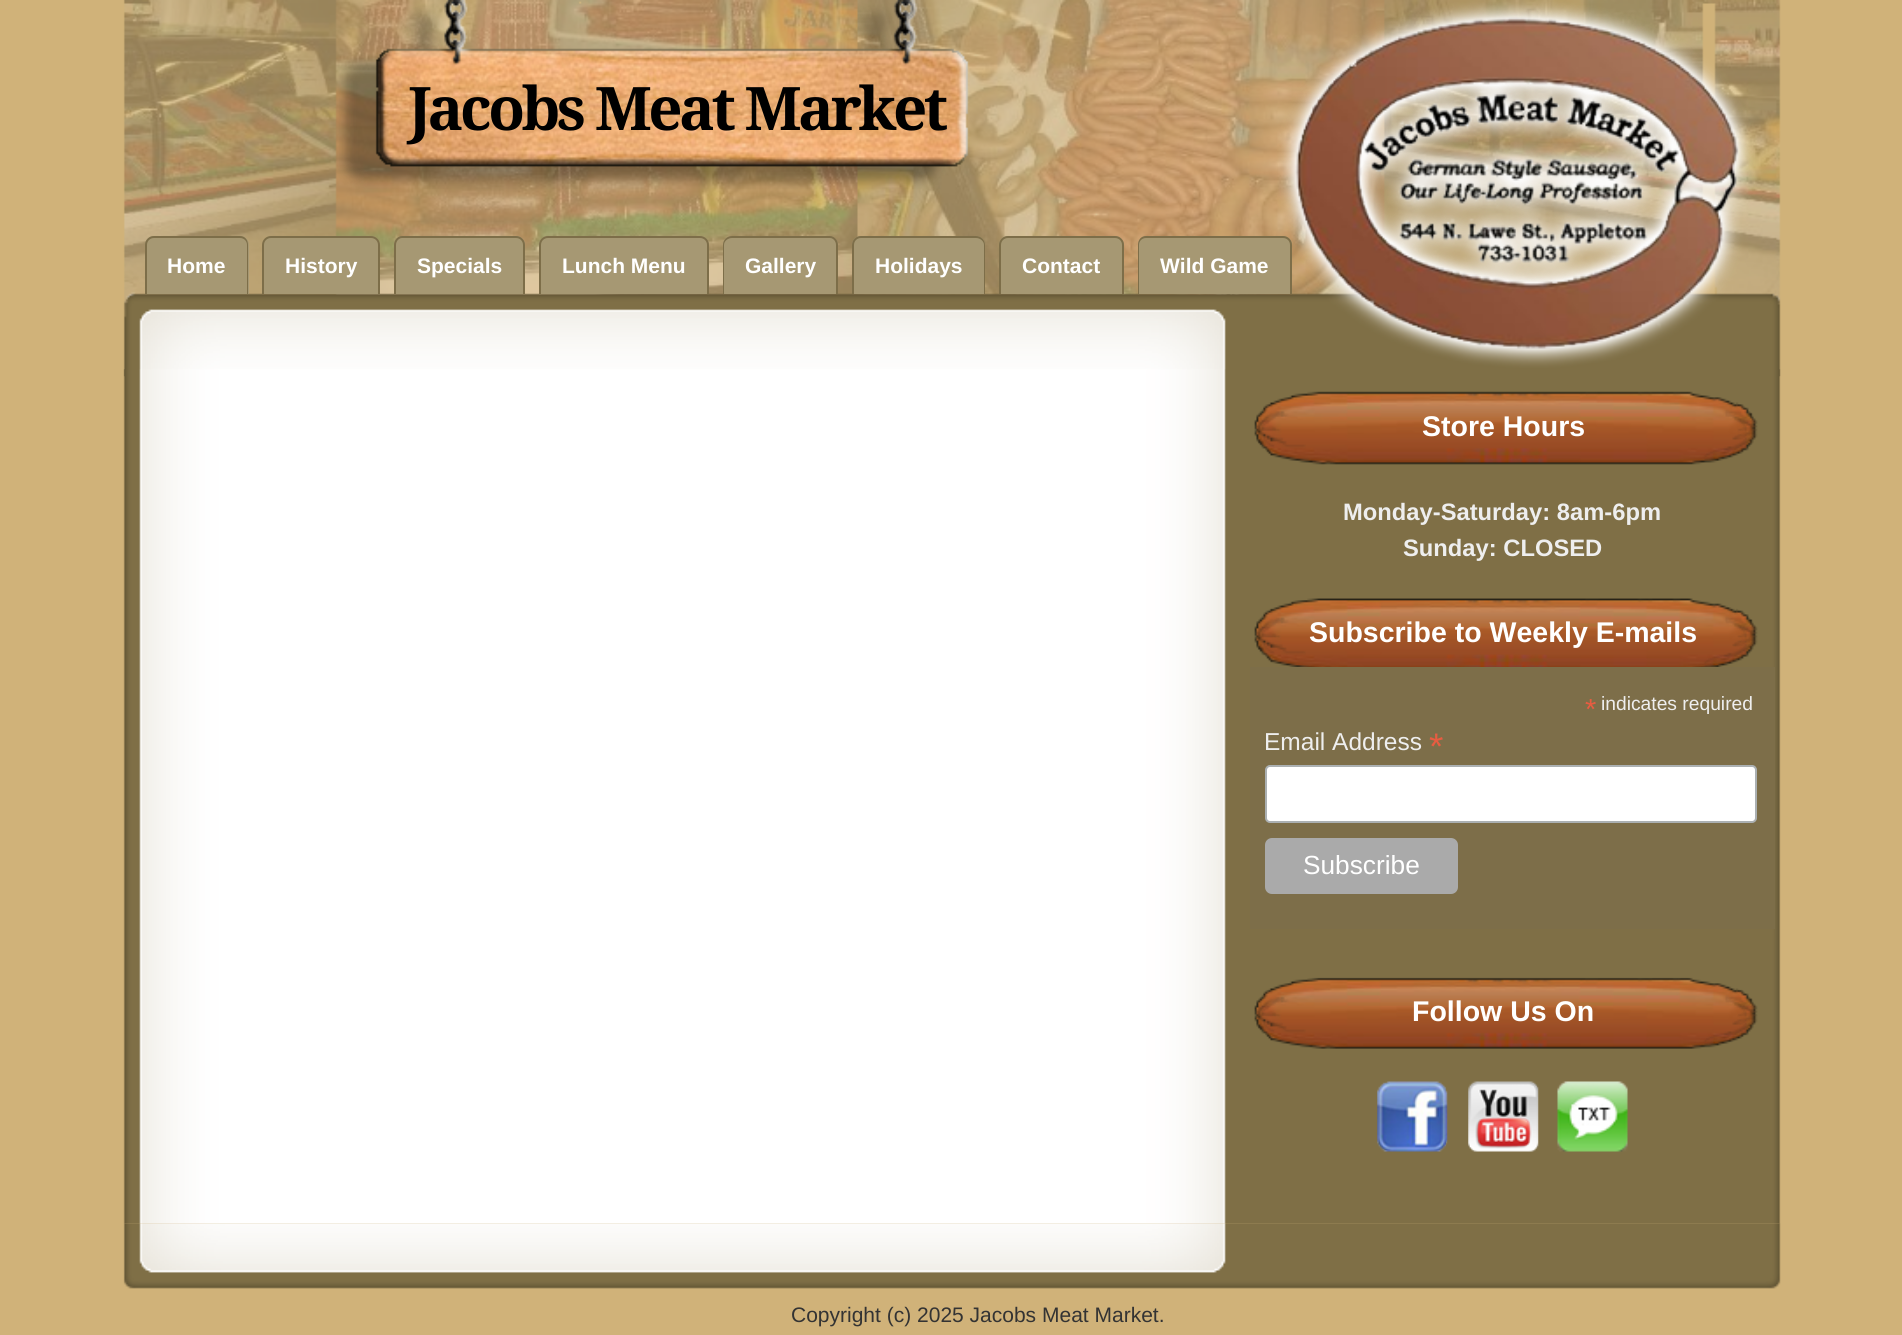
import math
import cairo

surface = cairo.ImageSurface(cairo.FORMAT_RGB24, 1902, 1335)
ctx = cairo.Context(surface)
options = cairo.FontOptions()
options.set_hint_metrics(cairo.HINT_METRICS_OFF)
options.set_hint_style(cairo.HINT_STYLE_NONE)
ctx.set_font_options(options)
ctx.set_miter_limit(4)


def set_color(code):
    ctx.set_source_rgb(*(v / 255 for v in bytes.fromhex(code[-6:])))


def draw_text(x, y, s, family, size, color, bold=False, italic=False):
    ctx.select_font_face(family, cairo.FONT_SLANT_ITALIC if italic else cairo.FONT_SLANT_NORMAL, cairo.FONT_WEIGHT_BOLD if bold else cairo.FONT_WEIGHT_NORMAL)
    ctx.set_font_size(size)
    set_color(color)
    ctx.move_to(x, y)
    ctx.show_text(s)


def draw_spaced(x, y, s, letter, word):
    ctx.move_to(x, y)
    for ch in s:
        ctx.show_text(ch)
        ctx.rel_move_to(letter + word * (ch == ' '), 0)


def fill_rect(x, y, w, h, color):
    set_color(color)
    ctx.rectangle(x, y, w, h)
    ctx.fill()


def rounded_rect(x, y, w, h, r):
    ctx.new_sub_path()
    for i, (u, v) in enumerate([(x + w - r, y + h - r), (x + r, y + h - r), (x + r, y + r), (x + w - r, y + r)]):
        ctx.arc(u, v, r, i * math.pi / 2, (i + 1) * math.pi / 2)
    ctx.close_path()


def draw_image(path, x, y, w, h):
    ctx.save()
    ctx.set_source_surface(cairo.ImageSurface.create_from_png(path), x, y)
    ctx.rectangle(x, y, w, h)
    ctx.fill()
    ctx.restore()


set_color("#d0b279")
ctx.paint()
draw_image("assets/img1.png", 123, 0, 1658, 377)
ctx.select_font_face("Droid Serif", cairo.FONT_SLANT_NORMAL, cairo.FONT_WEIGHT_BOLD)
ctx.set_font_size(60)
set_color("#000000")
draw_spaced(409, 130, "Jacobs Meat Market", -3.5, 0)
set_color("#a69873")
ctx.new_path()
ctx.move_to(154, 236)
ctx.line_to(240, 236)
ctx.curve_to(245, 236, 249, 240, 249, 245)
ctx.line_to(249, 294)
ctx.line_to(145, 294)
ctx.line_to(145, 245)
ctx.curve_to(145, 240, 149, 236, 154, 236)
ctx.close_path()
ctx.fill()
set_color("#7d6e49")
ctx.set_fill_rule(cairo.FILL_RULE_EVEN_ODD)
ctx.new_path()
ctx.move_to(154, 236)
ctx.line_to(240, 236)
ctx.curve_to(245, 236, 248, 240, 248, 245)
ctx.line_to(248, 294)
ctx.line_to(145, 294)
ctx.line_to(145, 245)
ctx.curve_to(145, 240, 149, 236, 154, 236)
ctx.close_path()
ctx.move_to(154, 238)
ctx.line_to(240, 238)
ctx.curve_to(244, 238, 247, 241, 247, 245)
ctx.line_to(247, 294)
ctx.line_to(147, 294)
ctx.line_to(147, 245)
ctx.curve_to(147, 241, 150, 238, 154, 238)
ctx.close_path()
ctx.fill()
draw_text(167, 273, "Home", "Liberation Sans", 21, "#ffffff", bold=True)
set_color("#a69873")
ctx.new_path()
ctx.move_to(272, 236)
ctx.line_to(371, 236)
ctx.curve_to(376, 236, 380, 240, 380, 245)
ctx.line_to(380, 294)
ctx.line_to(263, 294)
ctx.line_to(263, 245)
ctx.curve_to(263, 240, 267, 236, 272, 236)
ctx.close_path()
ctx.fill()
set_color("#7d6e49")
ctx.new_path()
ctx.move_to(271, 236)
ctx.line_to(371, 236)
ctx.curve_to(376, 236, 380, 240, 380, 245)
ctx.line_to(380, 294)
ctx.line_to(262, 294)
ctx.line_to(262, 245)
ctx.curve_to(262, 240, 266, 236, 271, 236)
ctx.close_path()
ctx.move_to(271, 238)
ctx.line_to(371, 238)
ctx.curve_to(375, 238, 378, 241, 378, 245)
ctx.line_to(378, 294)
ctx.line_to(264, 294)
ctx.line_to(264, 245)
ctx.curve_to(264, 241, 267, 238, 271, 238)
ctx.close_path()
ctx.fill()
draw_text(285, 273, "History", "Liberation Sans", 21, "#ffffff", bold=True)
set_color("#a69873")
ctx.new_path()
ctx.move_to(403, 236)
ctx.line_to(516, 236)
ctx.curve_to(521, 236, 525, 240, 525, 245)
ctx.line_to(525, 294)
ctx.line_to(394, 294)
ctx.line_to(394, 245)
ctx.curve_to(394, 240, 398, 236, 403, 236)
ctx.close_path()
ctx.fill()
set_color("#7d6e49")
ctx.new_path()
ctx.move_to(402, 236)
ctx.line_to(516, 236)
ctx.curve_to(521, 236, 525, 240, 525, 245)
ctx.line_to(525, 294)
ctx.line_to(394, 294)
ctx.line_to(394, 245)
ctx.curve_to(394, 240, 398, 236, 402, 236)
ctx.close_path()
ctx.move_to(402, 238)
ctx.line_to(516, 238)
ctx.curve_to(520, 238, 523, 241, 523, 245)
ctx.line_to(523, 294)
ctx.line_to(396, 294)
ctx.line_to(396, 245)
ctx.curve_to(396, 241, 399, 238, 402, 238)
ctx.close_path()
ctx.fill()
draw_text(417, 273, "Specials", "Liberation Sans", 21, "#ffffff", bold=True)
set_color("#a69873")
ctx.new_path()
ctx.move_to(548, 236)
ctx.line_to(700, 236)
ctx.curve_to(705, 236, 709, 240, 709, 245)
ctx.line_to(709, 294)
ctx.line_to(539, 294)
ctx.line_to(539, 245)
ctx.curve_to(539, 240, 543, 236, 548, 236)
ctx.close_path()
ctx.fill()
set_color("#7d6e49")
ctx.new_path()
ctx.move_to(548, 236)
ctx.line_to(700, 236)
ctx.curve_to(705, 236, 709, 240, 709, 245)
ctx.line_to(709, 294)
ctx.line_to(539, 294)
ctx.line_to(539, 245)
ctx.curve_to(539, 240, 543, 236, 548, 236)
ctx.close_path()
ctx.move_to(548, 238)
ctx.line_to(700, 238)
ctx.curve_to(704, 238, 707, 241, 707, 245)
ctx.line_to(707, 294)
ctx.line_to(541, 294)
ctx.line_to(541, 245)
ctx.curve_to(541, 241, 544, 238, 548, 238)
ctx.close_path()
ctx.fill()
draw_text(562, 273, "Lunch Menu", "Liberation Sans", 21, "#ffffff", bold=True)
set_color("#a69873")
ctx.new_path()
ctx.move_to(732, 236)
ctx.line_to(829, 236)
ctx.curve_to(834, 236, 838, 240, 838, 245)
ctx.line_to(838, 294)
ctx.line_to(723, 294)
ctx.line_to(723, 245)
ctx.curve_to(723, 240, 727, 236, 732, 236)
ctx.close_path()
ctx.fill()
set_color("#7d6e49")
ctx.new_path()
ctx.move_to(732, 236)
ctx.line_to(830, 236)
ctx.curve_to(834, 236, 838, 240, 838, 245)
ctx.line_to(838, 294)
ctx.line_to(723, 294)
ctx.line_to(723, 245)
ctx.curve_to(723, 240, 727, 236, 732, 236)
ctx.close_path()
ctx.move_to(732, 238)
ctx.line_to(830, 238)
ctx.curve_to(833, 238, 836, 241, 836, 245)
ctx.line_to(836, 294)
ctx.line_to(724, 294)
ctx.line_to(724, 245)
ctx.curve_to(724, 241, 728, 238, 732, 238)
ctx.close_path()
ctx.fill()
draw_text(745, 273, "Gallery", "Liberation Sans", 21, "#ffffff", bold=True)
set_color("#a69873")
ctx.new_path()
ctx.move_to(861, 236)
ctx.line_to(976, 236)
ctx.curve_to(981, 236, 985, 240, 985, 245)
ctx.line_to(985, 294)
ctx.line_to(852, 294)
ctx.line_to(852, 245)
ctx.curve_to(852, 240, 856, 236, 861, 236)
ctx.close_path()
ctx.fill()
set_color("#7d6e49")
ctx.new_path()
ctx.move_to(861, 236)
ctx.line_to(976, 236)
ctx.curve_to(981, 236, 985, 240, 985, 245)
ctx.line_to(985, 294)
ctx.line_to(852, 294)
ctx.line_to(852, 245)
ctx.curve_to(852, 240, 856, 236, 861, 236)
ctx.close_path()
ctx.move_to(861, 238)
ctx.line_to(976, 238)
ctx.curve_to(980, 238, 984, 241, 984, 245)
ctx.line_to(984, 294)
ctx.line_to(854, 294)
ctx.line_to(854, 245)
ctx.curve_to(854, 241, 857, 238, 861, 238)
ctx.close_path()
ctx.fill()
draw_text(875, 273, "Holidays", "Liberation Sans", 21, "#ffffff", bold=True)
set_color("#a69873")
ctx.new_path()
ctx.move_to(1008, 236)
ctx.line_to(1115, 236)
ctx.curve_to(1120, 236, 1124, 240, 1124, 245)
ctx.line_to(1124, 294)
ctx.line_to(999, 294)
ctx.line_to(999, 245)
ctx.curve_to(999, 240, 1003, 236, 1008, 236)
ctx.close_path()
ctx.fill()
set_color("#7d6e49")
ctx.new_path()
ctx.move_to(1008, 236)
ctx.line_to(1115, 236)
ctx.curve_to(1120, 236, 1124, 240, 1124, 245)
ctx.line_to(1124, 294)
ctx.line_to(999, 294)
ctx.line_to(999, 245)
ctx.curve_to(999, 240, 1003, 236, 1008, 236)
ctx.close_path()
ctx.move_to(1008, 238)
ctx.line_to(1115, 238)
ctx.curve_to(1119, 238, 1122, 241, 1122, 245)
ctx.line_to(1122, 294)
ctx.line_to(1001, 294)
ctx.line_to(1001, 245)
ctx.curve_to(1001, 241, 1004, 238, 1008, 238)
ctx.close_path()
ctx.fill()
draw_text(1022, 273, "Contact", "Liberation Sans", 21, "#ffffff", bold=True)
set_color("#a69873")
ctx.new_path()
ctx.move_to(1147, 236)
ctx.line_to(1283, 236)
ctx.curve_to(1288, 236, 1292, 240, 1292, 245)
ctx.line_to(1292, 294)
ctx.line_to(1138, 294)
ctx.line_to(1138, 245)
ctx.curve_to(1138, 240, 1142, 236, 1147, 236)
ctx.close_path()
ctx.fill()
set_color("#7d6e49")
ctx.new_path()
ctx.move_to(1146, 236)
ctx.line_to(1283, 236)
ctx.curve_to(1288, 236, 1292, 240, 1292, 245)
ctx.line_to(1292, 294)
ctx.line_to(1138, 294)
ctx.line_to(1138, 245)
ctx.curve_to(1138, 240, 1141, 236, 1146, 236)
ctx.close_path()
ctx.move_to(1146, 238)
ctx.line_to(1283, 238)
ctx.curve_to(1287, 238, 1290, 241, 1290, 245)
ctx.line_to(1290, 294)
ctx.line_to(1139, 294)
ctx.line_to(1139, 245)
ctx.curve_to(1139, 241, 1142, 238, 1146, 238)
ctx.close_path()
ctx.fill()
draw_text(1160, 273, "Wild Game", "Liberation Sans", 21, "#ffffff", bold=True)
draw_image("assets/img2.png", 123, 369, 1658, 855)
draw_image("assets/img3.png", 1254, 391, 504, 74)
draw_text(1422, 436, "Store Hours", "Liberation Sans", 28.5, "#ffffff", bold=True)
draw_text(1343, 520, "Monday-Saturday: 8am-6pm", "Liberation Sans", 23.75, "#eeeeee", bold=True)
draw_text(1403, 556, "Sunday: CLOSED", "Liberation Sans", 23.75, "#eeeeee", bold=True)
draw_image("assets/img4.png", 1254, 598, 504, 69)
draw_text(1309, 642, "Subscribe to Weekly E-mails", "Liberation Sans", 28.5, "#ffffff", bold=True)
fill_rect(1250, 667, 525, 262, "#7d6e49")
draw_text(1585, 719, "*", "Liberation Sans", 29, "#e85c41")
draw_text(1601, 710, "indicates required", "Liberation Sans", 19.25, "#eeeeee")
draw_text(1264, 750, "Email Address", "Liberation Sans", 24.5, "#eeeeee")
draw_text(1429, 759, "*", "Liberation Sans", 37, "#e85c41")
set_color("#ffffff")
rounded_rect(1266, 766, 490, 56, 4)
ctx.fill_preserve()
set_color("#abb0b2")
ctx.stroke()
set_color("#aaaaaa")
rounded_rect(1265, 838, 193, 56, 7)
ctx.fill()
draw_text(1303, 874, "Subscribe", "Liberation Sans", 26.25, "#ffffff")
draw_image("assets/img5.png", 1254, 977, 504, 72)
draw_text(1412, 1021, "Follow Us On", "Liberation Sans", 28.5, "#ffffff", bold=True)
draw_image("assets/img6.png", 1377, 1081, 71, 71)
draw_image("assets/img7.png", 1468, 1081, 71, 71)
draw_image("assets/img8.png", 1557, 1081, 71, 71)
draw_image("assets/img9.png", 123, 1223, 1658, 66)
draw_text(791, 1322, "Copyright (c) 2025 Jacobs Meat Market.", "Liberation Sans", 21, "#333333")
surface.write_to_png("output.png")
